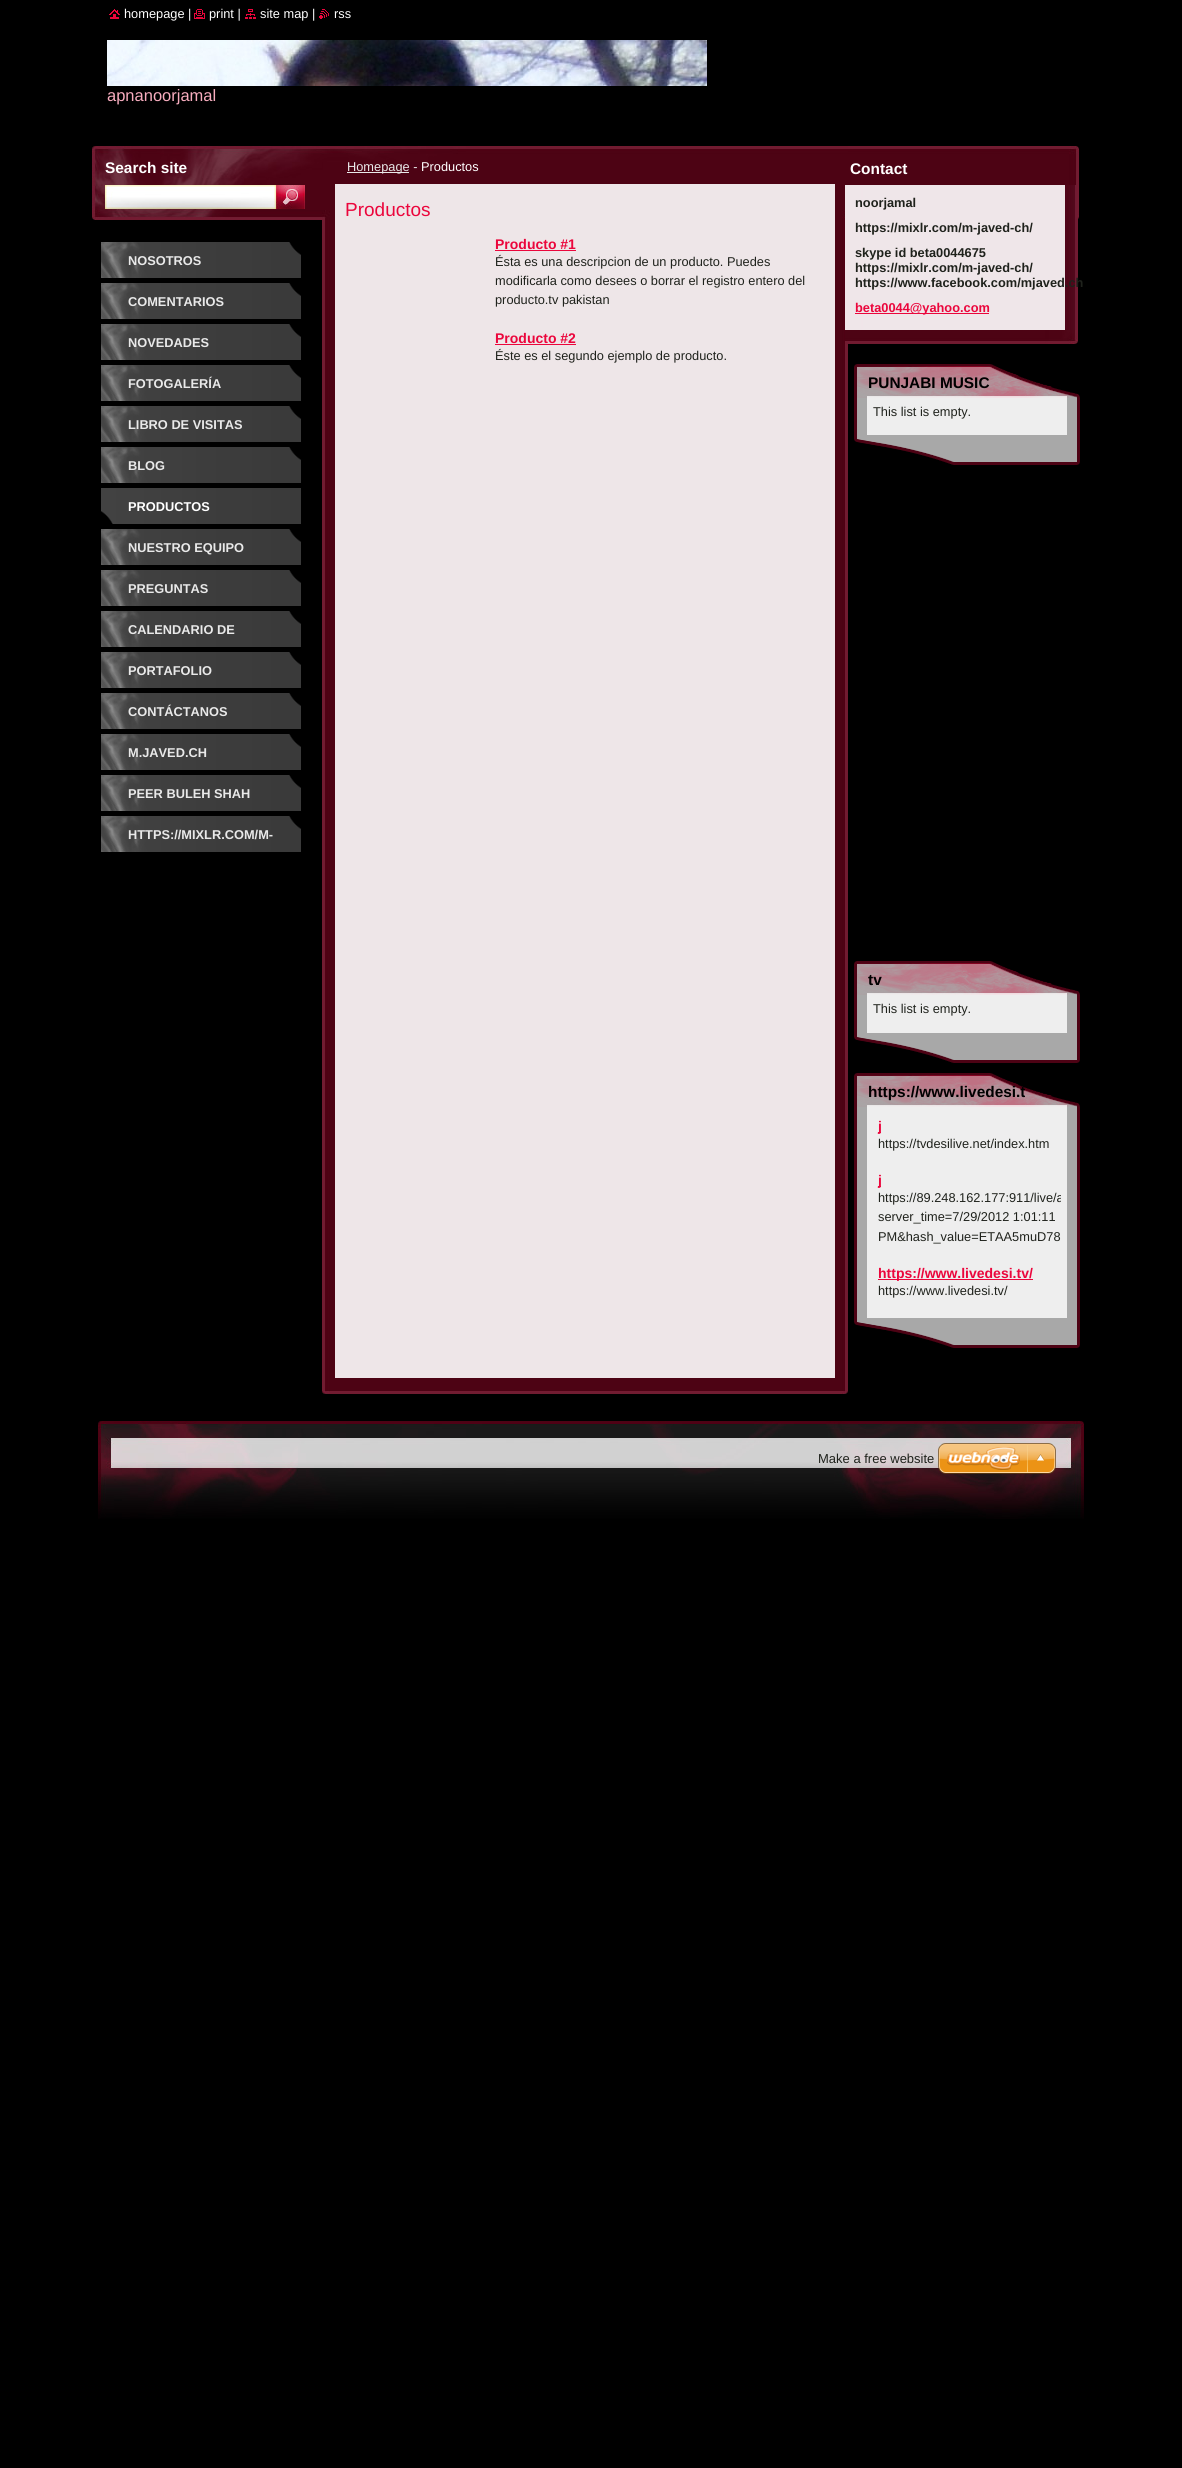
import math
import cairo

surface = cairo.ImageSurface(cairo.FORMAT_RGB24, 1182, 2468)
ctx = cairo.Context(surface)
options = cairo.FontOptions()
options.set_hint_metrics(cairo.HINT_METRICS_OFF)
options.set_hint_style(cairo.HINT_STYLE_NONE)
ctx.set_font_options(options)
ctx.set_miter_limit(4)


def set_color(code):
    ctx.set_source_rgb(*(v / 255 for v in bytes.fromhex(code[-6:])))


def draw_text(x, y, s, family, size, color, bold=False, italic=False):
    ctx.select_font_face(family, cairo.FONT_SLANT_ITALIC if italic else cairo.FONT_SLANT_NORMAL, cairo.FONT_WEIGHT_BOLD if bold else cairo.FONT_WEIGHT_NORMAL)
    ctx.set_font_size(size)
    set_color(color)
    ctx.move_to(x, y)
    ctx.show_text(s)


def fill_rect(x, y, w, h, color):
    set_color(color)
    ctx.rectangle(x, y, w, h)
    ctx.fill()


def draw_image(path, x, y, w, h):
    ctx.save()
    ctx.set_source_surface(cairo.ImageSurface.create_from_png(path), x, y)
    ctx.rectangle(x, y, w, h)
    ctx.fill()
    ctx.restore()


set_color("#000000")
ctx.paint()
draw_image("assets/img1.png", 109, 9, 11, 10)
draw_text(124, 18, "homepage |", "Liberation Sans", 12.8, "#ffffff")
draw_image("assets/img2.png", 194, 9, 11, 10)
draw_text(209, 18, "print |", "Liberation Sans", 12.8, "#ffffff")
draw_image("assets/img3.png", 245, 9, 11, 10)
draw_text(260, 18, "site map |", "Liberation Sans", 12.8, "#ffffff")
draw_image("assets/img4.png", 319, 9, 10, 10)
draw_text(334, 18, "rss", "Liberation Sans", 12.8, "#ffffff")
draw_image("assets/img5.png", 107, 40, 600, 46)
draw_text(107, 101, "apnanoorjamal", "Liberation Sans", 16.5, "#f8adbf")
draw_image("assets/img6.png", 92, 146, 987, 74)
draw_text(105, 173, "Search site", "Liberation Sans", 15.4, "#ffffff", bold=True)
draw_image("assets/img7.png", 105, 185, 171, 24)
draw_image("assets/img8.png", 276, 185, 29, 24)
draw_image("assets/img9.png", 322, 218, 526, 1173)
draw_image("assets/img10.png", 322, 146, 526, 72)
fill_rect(347, 172, 62, 1, "#e9e9e9")
draw_text(347, 171, "Homepage -", "Liberation Sans", 12.8, "#e9e9e9")
draw_text(421, 171, "Productos", "Liberation Sans", 12.8, "#ffffff")
fill_rect(335, 184, 500, 1194, "#eee6e8")
draw_text(345, 216, "Productos", "Liberation Sans", 19, "#eb063c")
draw_text(495, 249, "Producto #1", "Liberation Sans", 14, "#eb063c", bold=True)
fill_rect(495, 250, 81, 1, "#eb063c")
draw_text(495, 266, "Ésta es una descripcion de un producto. Puedes", "Liberation Sans", 12.8, "#1f221c")
draw_text(495, 285, "modificarla como desees o borrar el registro entero del", "Liberation Sans", 12.8, "#1f221c")
draw_text(495, 304, "producto.tv pakistan", "Liberation Sans", 12.8, "#1f221c")
draw_text(495, 343, "Producto #2", "Liberation Sans", 14, "#eb063c", bold=True)
fill_rect(495, 344, 81, 1, "#eb063c")
draw_text(495, 360, "Éste es el segundo ejemplo de producto.", "Liberation Sans", 12.8, "#1f221c")
draw_image("assets/img11.png", 322, 1391, 526, 3)
draw_text(850, 174, "Contact", "Liberation Sans", 15.4, "#ffffff", bold=True)
draw_image("assets/img12.png", 845, 185, 233, 145)
draw_text(855, 207, "noorjamal", "Liberation Sans", 12.8, "#1f221c", bold=True)
draw_text(855, 232, "https://mixlr.com/m-javed-ch/", "Liberation Sans", 12.8, "#1f221c", bold=True)
draw_text(855, 257, "skype id beta0044675", "Liberation Sans", 12.8, "#1f221c", bold=True)
draw_text(855, 272, "https://mixlr.com/m-javed-ch/", "Liberation Sans", 12.8, "#1f221c", bold=True)
draw_text(855, 287, "https://www.facebook.com/mjaved.ch", "Liberation Sans", 12.8, "#1f221c", bold=True)
fill_rect(855, 313, 134, 1, "#eb063c")
draw_text(855, 312, "beta0044@yahoo.com", "Liberation Sans", 12.8, "#eb063c", bold=True)
draw_image("assets/img13.png", 845, 330, 233, 14)
draw_image("assets/img14.png", 854, 364, 226, 34)
draw_text(868, 388, "PUNJABI MUSIC", "Liberation Sans", 15.4, "#000000", bold=True)
draw_image("assets/img15.png", 854, 398, 226, 35)
draw_text(873, 416, "This list is empty.", "Liberation Sans", 12.8, "#1f221c")
draw_image("assets/img16.png", 854, 433, 226, 32)
draw_image("assets/img14.png", 854, 961, 226, 34)
draw_text(868, 985, "tv", "Liberation Sans", 15.4, "#000000", bold=True)
draw_image("assets/img17.png", 854, 995, 226, 36)
draw_text(873, 1013, "This list is empty.", "Liberation Sans", 12.8, "#1f221c")
draw_image("assets/img16.png", 854, 1031, 226, 32)
draw_image("assets/img14.png", 854, 1073, 226, 34)
draw_text(868, 1097, "https://www.livedesi.t", "Liberation Sans", 15.4, "#000000", bold=True)
draw_image("assets/img18.png", 854, 1107, 226, 209)
fill_rect(878, 1132, 3, 1, "#eb063c")
draw_text(878, 1131, "j", "Liberation Sans", 14, "#eb063c", bold=True)
draw_text(878, 1148, "https://tvdesilive.net/index.htm", "Liberation Sans", 12.8, "#1f221c")
fill_rect(878, 1186, 3, 1, "#eb063c")
draw_text(878, 1185, "j", "Liberation Sans", 14, "#eb063c", bold=True)
ctx.save()
ctx.rectangle(873, 1111, 188, 201)
ctx.clip()
draw_text(878, 1202, "https://89.248.162.177:911/live/a", "Liberation Sans", 12.8, "#1f221c")
ctx.restore()
draw_text(878, 1221, "server_time=7/29/2012 1:01:11", "Liberation Sans", 12.8, "#1f221c")
draw_text(878, 1241, "PM&hash_value=ETAA5muD78", "Liberation Sans", 12.8, "#1f221c")
fill_rect(878, 1279, 155, 1, "#eb063c")
draw_text(878, 1278, "https://www.livedesi.tv/", "Liberation Sans", 14, "#eb063c", bold=True)
draw_text(878, 1295, "https://www.livedesi.tv/", "Liberation Sans", 12.8, "#1f221c")
draw_image("assets/img16.png", 854, 1316, 226, 32)
draw_image("assets/img19.png", 101, 242, 200, 36)
draw_text(128, 265, "NOSOTROS", "Liberation Sans", 12.8, "#e9e9e9", bold=True)
draw_image("assets/img19.png", 101, 283, 200, 36)
draw_text(128, 306, "COMENTARIOS", "Liberation Sans", 12.8, "#e9e9e9", bold=True)
draw_image("assets/img19.png", 101, 324, 200, 36)
draw_text(128, 347, "NOVEDADES", "Liberation Sans", 12.8, "#e9e9e9", bold=True)
draw_image("assets/img19.png", 101, 365, 200, 36)
draw_text(128, 388, "FOTOGALERÍA", "Liberation Sans", 12.8, "#e9e9e9", bold=True)
draw_image("assets/img19.png", 101, 406, 200, 36)
draw_text(128, 429, "LIBRO DE VISITAS", "Liberation Sans", 12.8, "#e9e9e9", bold=True)
draw_image("assets/img19.png", 101, 447, 200, 36)
draw_text(128, 470, "BLOG", "Liberation Sans", 12.8, "#e9e9e9", bold=True)
draw_image("assets/img20.png", 101, 488, 200, 36)
draw_text(128, 511, "PRODUCTOS", "Liberation Sans", 12.8, "#ffffff", bold=True)
draw_image("assets/img19.png", 101, 529, 200, 36)
draw_text(128, 552, "NUESTRO EQUIPO", "Liberation Sans", 12.8, "#e9e9e9", bold=True)
draw_image("assets/img19.png", 101, 570, 200, 36)
draw_text(128, 593, "PREGUNTAS", "Liberation Sans", 12.8, "#e9e9e9", bold=True)
draw_image("assets/img19.png", 101, 611, 200, 36)
draw_text(128, 634, "CALENDARIO DE", "Liberation Sans", 12.8, "#e9e9e9", bold=True)
draw_image("assets/img19.png", 101, 652, 200, 36)
draw_text(128, 675, "PORTAFOLIO", "Liberation Sans", 12.8, "#e9e9e9", bold=True)
draw_image("assets/img19.png", 101, 693, 200, 36)
draw_text(128, 716, "CONTÁCTANOS", "Liberation Sans", 12.8, "#e9e9e9", bold=True)
draw_image("assets/img19.png", 101, 734, 200, 36)
draw_text(128, 757, "M.JAVED.CH", "Liberation Sans", 12.8, "#e9e9e9", bold=True)
draw_image("assets/img19.png", 101, 775, 200, 36)
draw_text(128, 798, "PEER BULEH SHAH", "Liberation Sans", 12.8, "#e9e9e9", bold=True)
draw_image("assets/img19.png", 101, 816, 200, 36)
draw_text(128, 839, "HTTPS://MIXLR.COM/M-", "Liberation Sans", 12.8, "#e9e9e9", bold=True)
draw_image("assets/img21.png", 98, 1421, 986, 98)
draw_text(818, 1463, "Make a free website", "Liberation Sans", 13, "#1f221c")
draw_image("assets/img22.png", 938, 1443, 118, 31)
surface.write_to_png("output.png")
